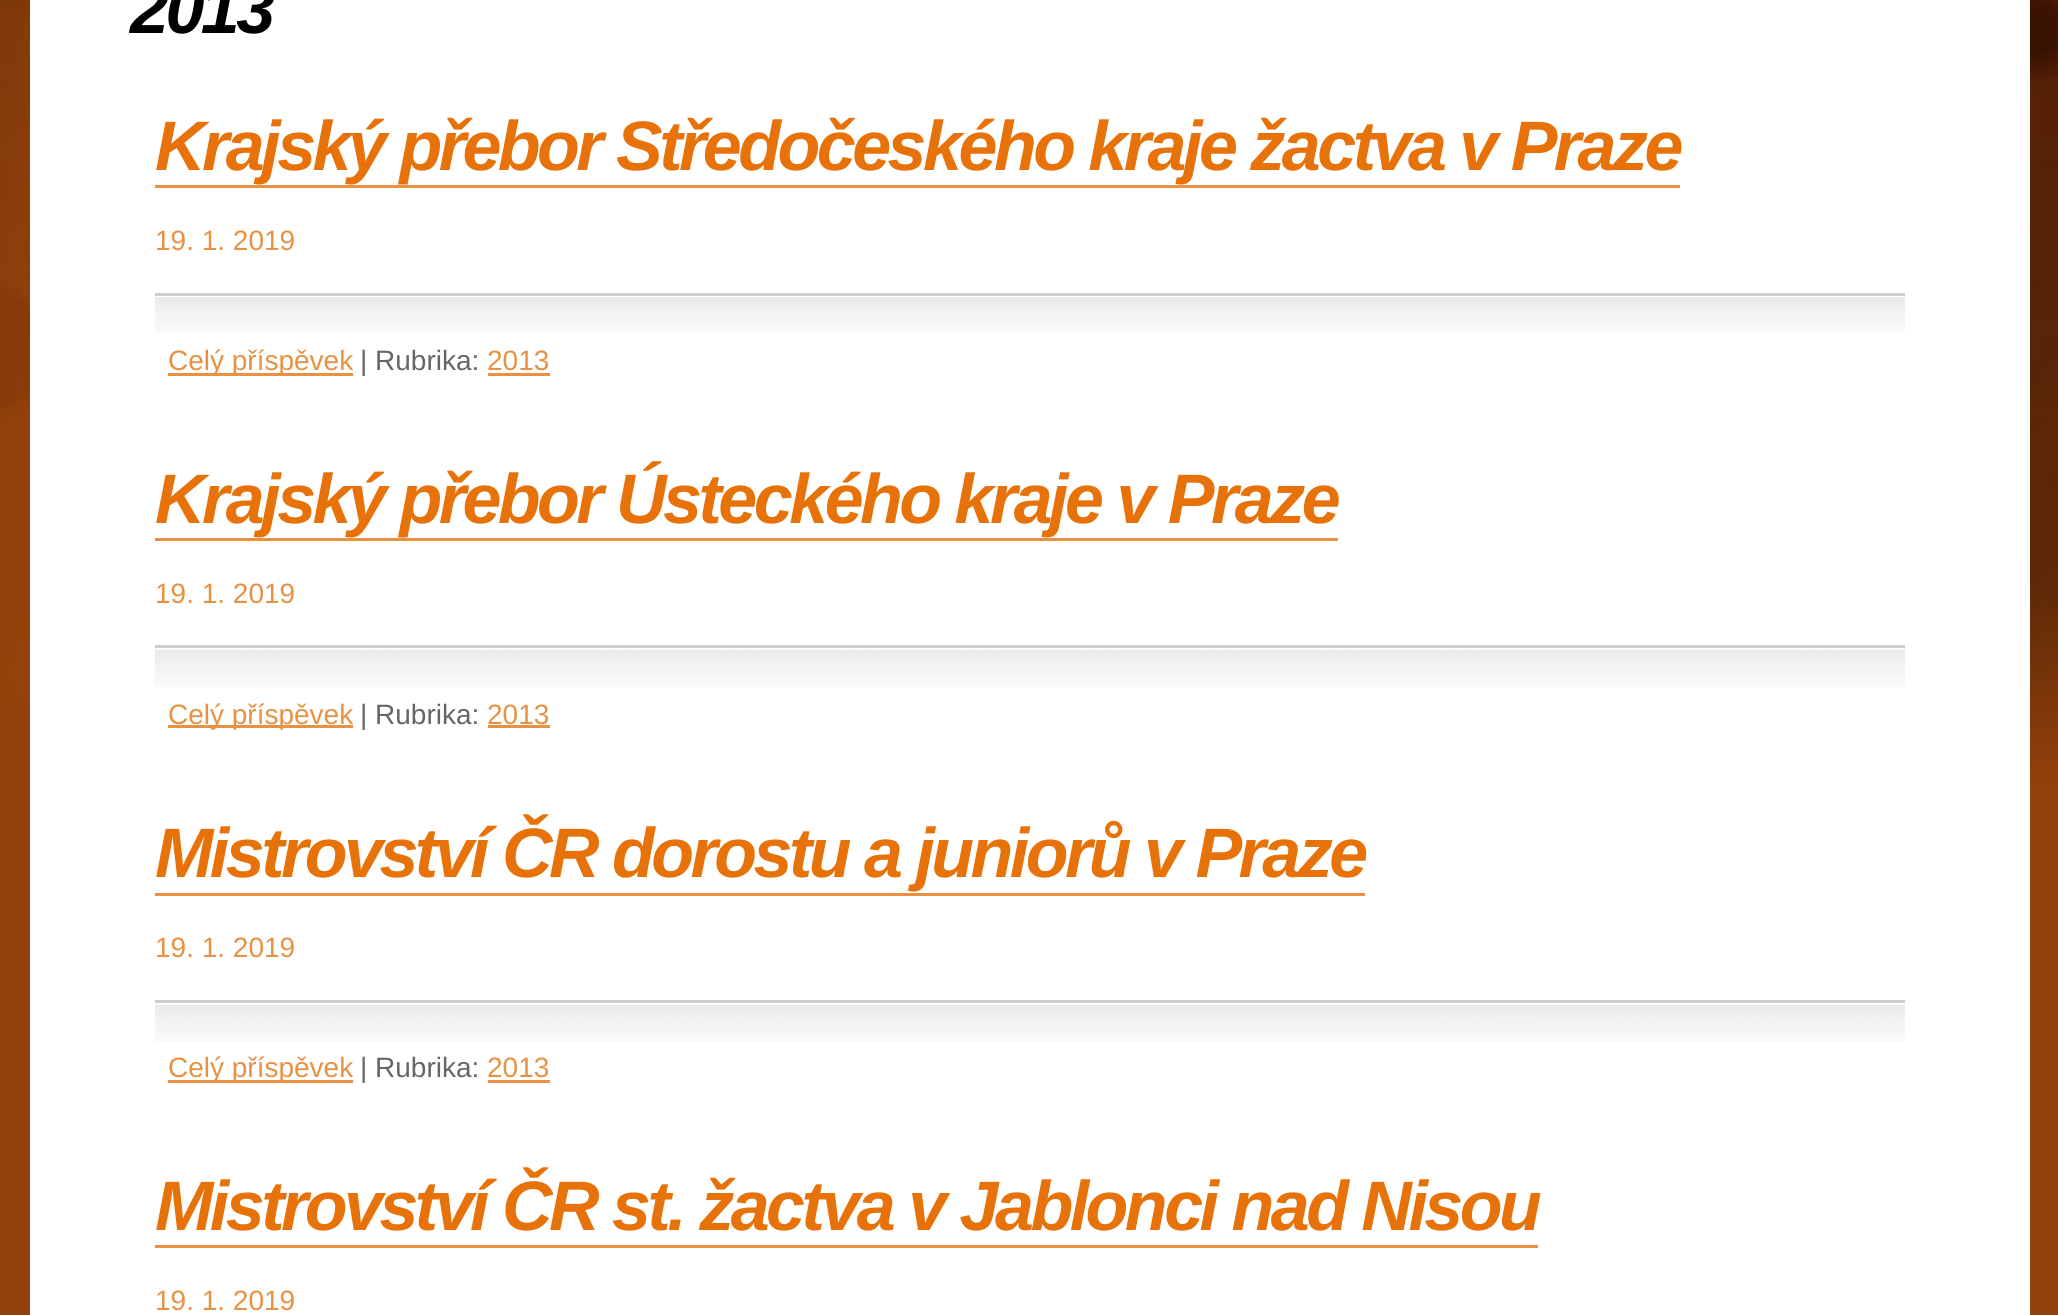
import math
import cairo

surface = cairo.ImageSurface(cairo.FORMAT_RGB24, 2058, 1315)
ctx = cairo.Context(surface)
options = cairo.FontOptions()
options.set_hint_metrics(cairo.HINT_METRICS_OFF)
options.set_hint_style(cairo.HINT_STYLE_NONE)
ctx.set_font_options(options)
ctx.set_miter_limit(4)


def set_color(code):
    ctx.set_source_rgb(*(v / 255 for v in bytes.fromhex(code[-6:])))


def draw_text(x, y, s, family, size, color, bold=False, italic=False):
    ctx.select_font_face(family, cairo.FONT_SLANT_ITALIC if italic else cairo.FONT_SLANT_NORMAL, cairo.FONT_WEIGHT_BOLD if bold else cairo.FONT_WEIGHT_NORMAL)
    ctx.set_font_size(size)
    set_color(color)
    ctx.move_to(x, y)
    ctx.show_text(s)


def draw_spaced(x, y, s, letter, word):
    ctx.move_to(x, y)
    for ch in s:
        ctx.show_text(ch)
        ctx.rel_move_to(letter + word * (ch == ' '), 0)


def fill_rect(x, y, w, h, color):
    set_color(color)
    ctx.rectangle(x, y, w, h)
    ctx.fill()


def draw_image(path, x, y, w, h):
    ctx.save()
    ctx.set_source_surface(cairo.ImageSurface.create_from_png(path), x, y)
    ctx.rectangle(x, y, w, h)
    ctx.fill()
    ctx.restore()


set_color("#94410b")
ctx.paint()
draw_image("assets/img1.png", 0, 0, 2058, 783)
fill_rect(30, 0, 2000, 1315, "#ffffff")
ctx.select_font_face("Liberation Sans", cairo.FONT_SLANT_ITALIC, cairo.FONT_WEIGHT_BOLD)
ctx.set_font_size(70)
set_color("#000000")
draw_spaced(130, 33, "2013", -3.5, 0)
set_color("#e67209")
draw_spaced(155, 170, "Krajský přebor Středočeského kraje žactva v Praze", -3.5, 0)
fill_rect(155, 185, 1525, 3, "#e89142")
draw_text(155, 250, "19. 1. 2019", "Liberation Sans", 28, "#e89142")
fill_rect(155, 293, 1750, 3, "#cccccc")
draw_image("assets/img2.png", 155, 297, 1750, 37)
fill_rect(168, 373, 185, 3, "#e89142")
draw_text(168, 370, "Celý příspěvek", "Liberation Sans", 28, "#e89142")
draw_text(360, 370, "| Rubrika:", "Liberation Sans", 28, "#666666")
draw_text(487, 370, "2013", "Liberation Sans", 28, "#e89142")
fill_rect(488, 373, 62, 3, "#e89142")
ctx.select_font_face("Liberation Sans", cairo.FONT_SLANT_ITALIC, cairo.FONT_WEIGHT_BOLD)
ctx.set_font_size(70)
set_color("#e67209")
draw_spaced(155, 523, "Krajský přebor Ústeckého kraje v Praze", -3.5, 0)
fill_rect(155, 538, 1183, 3, "#e89142")
draw_text(155, 603, "19. 1. 2019", "Liberation Sans", 28, "#e89142")
fill_rect(155, 645, 1750, 3, "#cccccc")
draw_image("assets/img3.png", 155, 649, 1750, 38)
fill_rect(168, 725, 185, 3, "#e89142")
draw_text(168, 724, "Celý příspěvek", "Liberation Sans", 28, "#e89142")
draw_text(360, 724, "| Rubrika:", "Liberation Sans", 28, "#666666")
draw_text(487, 724, "2013", "Liberation Sans", 28, "#e89142")
fill_rect(488, 725, 62, 3, "#e89142")
ctx.select_font_face("Liberation Sans", cairo.FONT_SLANT_ITALIC, cairo.FONT_WEIGHT_BOLD)
ctx.set_font_size(70)
set_color("#e67209")
draw_spaced(155, 877, "Mistrovství ČR dorostu a juniorů v Praze", -3.5, 0)
fill_rect(155, 893, 1210, 3, "#e89142")
draw_text(155, 957, "19. 1. 2019", "Liberation Sans", 28, "#e89142")
fill_rect(155, 1000, 1750, 3, "#cccccc")
draw_image("assets/img4.png", 155, 1004, 1750, 38)
fill_rect(168, 1080, 185, 3, "#e89142")
draw_text(168, 1077, "Celý příspěvek", "Liberation Sans", 28, "#e89142")
draw_text(360, 1077, "| Rubrika:", "Liberation Sans", 28, "#666666")
draw_text(487, 1077, "2013", "Liberation Sans", 28, "#e89142")
fill_rect(488, 1080, 62, 3, "#e89142")
ctx.select_font_face("Liberation Sans", cairo.FONT_SLANT_ITALIC, cairo.FONT_WEIGHT_BOLD)
ctx.set_font_size(70)
set_color("#e67209")
draw_spaced(155, 1230, "Mistrovství ČR st. žactva v Jablonci nad Nisou", -3.5, 0)
fill_rect(155, 1245, 1383, 3, "#e89142")
draw_text(155, 1310, "19. 1. 2019", "Liberation Sans", 28, "#e89142")
surface.write_to_png("output.png")
